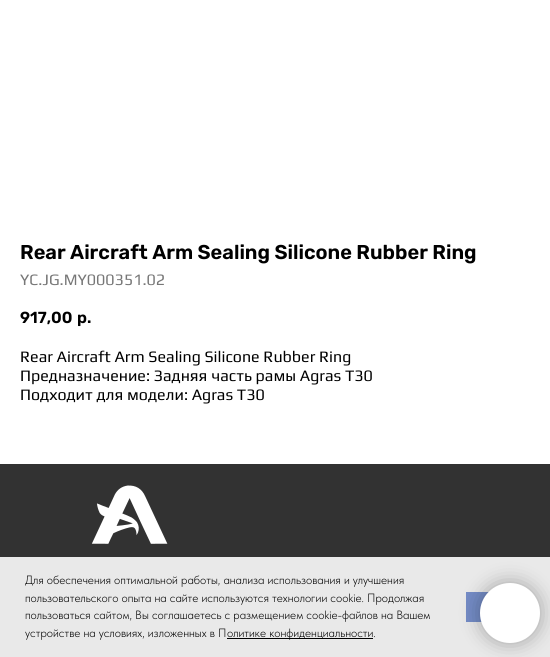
import math
import cairo

surface = cairo.ImageSurface(cairo.FORMAT_RGB24, 550, 657)
ctx = cairo.Context(surface)
options = cairo.FontOptions()
options.set_hint_metrics(cairo.HINT_METRICS_OFF)
options.set_hint_style(cairo.HINT_STYLE_NONE)
ctx.set_font_options(options)
ctx.set_miter_limit(4)


def set_color(code):
    ctx.set_source_rgb(*(v / 255 for v in bytes.fromhex(code[-6:])))


def draw_text(x, y, s, family, size, color, bold=False, italic=False):
    ctx.select_font_face(family, cairo.FONT_SLANT_ITALIC if italic else cairo.FONT_SLANT_NORMAL, cairo.FONT_WEIGHT_BOLD if bold else cairo.FONT_WEIGHT_NORMAL)
    ctx.set_font_size(size)
    set_color(color)
    ctx.move_to(x, y)
    ctx.show_text(s)


def fill_rect(x, y, w, h, color):
    set_color(color)
    ctx.rectangle(x, y, w, h)
    ctx.fill()


def rounded_rect(x, y, w, h, r):
    ctx.new_sub_path()
    for i, (u, v) in enumerate([(x + w - r, y + h - r), (x + r, y + h - r), (x + r, y + r), (x + w - r, y + r)]):
        ctx.arc(u, v, r, i * math.pi / 2, (i + 1) * math.pi / 2)
    ctx.close_path()


def draw_shadow(x, y, w, h, r, blur, alpha):
    ctx.push_group_with_content(cairo.CONTENT_ALPHA)
    ctx.set_operator(cairo.OPERATOR_SOURCE)
    for i in range(15, -16, -2):
        e = blur * i / 6
        if min(w, h) + 2 * e > 0:
            ctx.set_source_rgba(0, 0, 0, alpha * math.erfc((i - 1) / 8.5) / 2)
            rounded_rect(x - e, y - e, w + 2 * e, h + 2 * e, max(0, min(r + e + blur * .6, min(w, h) / 2 + e)))
            ctx.fill()
    ctx.mask(ctx.pop_group())


def draw_image(path, x, y, w, h):
    ctx.save()
    ctx.set_source_surface(cairo.ImageSurface.create_from_png(path), x, y)
    ctx.rectangle(x, y, w, h)
    ctx.fill()
    ctx.restore()


set_color("#ffffff")
ctx.paint()
draw_text(20, 259, "Rear Aircraft Arm Sealing Silicone Rubber Ring", "Rubik SemiBold", 20, "#000000")
draw_text(20, 285, "YC.JG.MY000351.02", "Play", 16, "#777777")
draw_text(20, 323, "917,00", "Rubik SemiBold", 16, "#000000")
draw_text(77, 323, "р.", "Rubik SemiBold", 16, "#000000")
draw_text(20, 362, "Rear Aircraft Arm Sealing Silicone Rubber Ring", "Play", 16, "#000000")
draw_text(20, 381, "Предназначение: Задняя часть рамы Agras T30", "Play", 16, "#000000")
draw_text(20, 400, "Подходит для модели: Agras Т30", "Play", 16, "#000000")
fill_rect(0, 464, 550, 93, "#323232")
draw_image("assets/img1.png", 91, 485, 77, 59)
fill_rect(0, 557, 550, 100, "#e9e9e9")
draw_text(25, 584, "Для обеспечения оптимальной работы, анализа использования и улучшения", "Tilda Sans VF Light", 12, "#000000")
draw_text(25, 602, "пользовательского опыта на сайте используются технологии cookie. Продолжая", "Tilda Sans VF Light", 12, "#000000")
draw_text(25, 619, "пользоваться сайтом, Вы соглашаетесь с размещением cookie-файлов на Вашем", "Tilda Sans VF Light", 12, "#000000")
draw_text(25, 637, "устройстве на условиях, изложенных в П", "Tilda Sans VF Light", 12, "#000000")
fill_rect(227, 638, 146, 1, "#000000")
draw_text(227, 637, "олитике конфиденциальности.", "Tilda Sans VF Light", 12, "#000000")
fill_rect(466, 592, 23, 30, "#748cc6")
set_color("#000000")
draw_shadow(480, 583, 60, 60, 30, 10, 0.3)
set_color("#ffffff")
ctx.arc(510, 613, 30, 0, 2 * math.pi)
ctx.fill()
surface.write_to_png("output.png")
